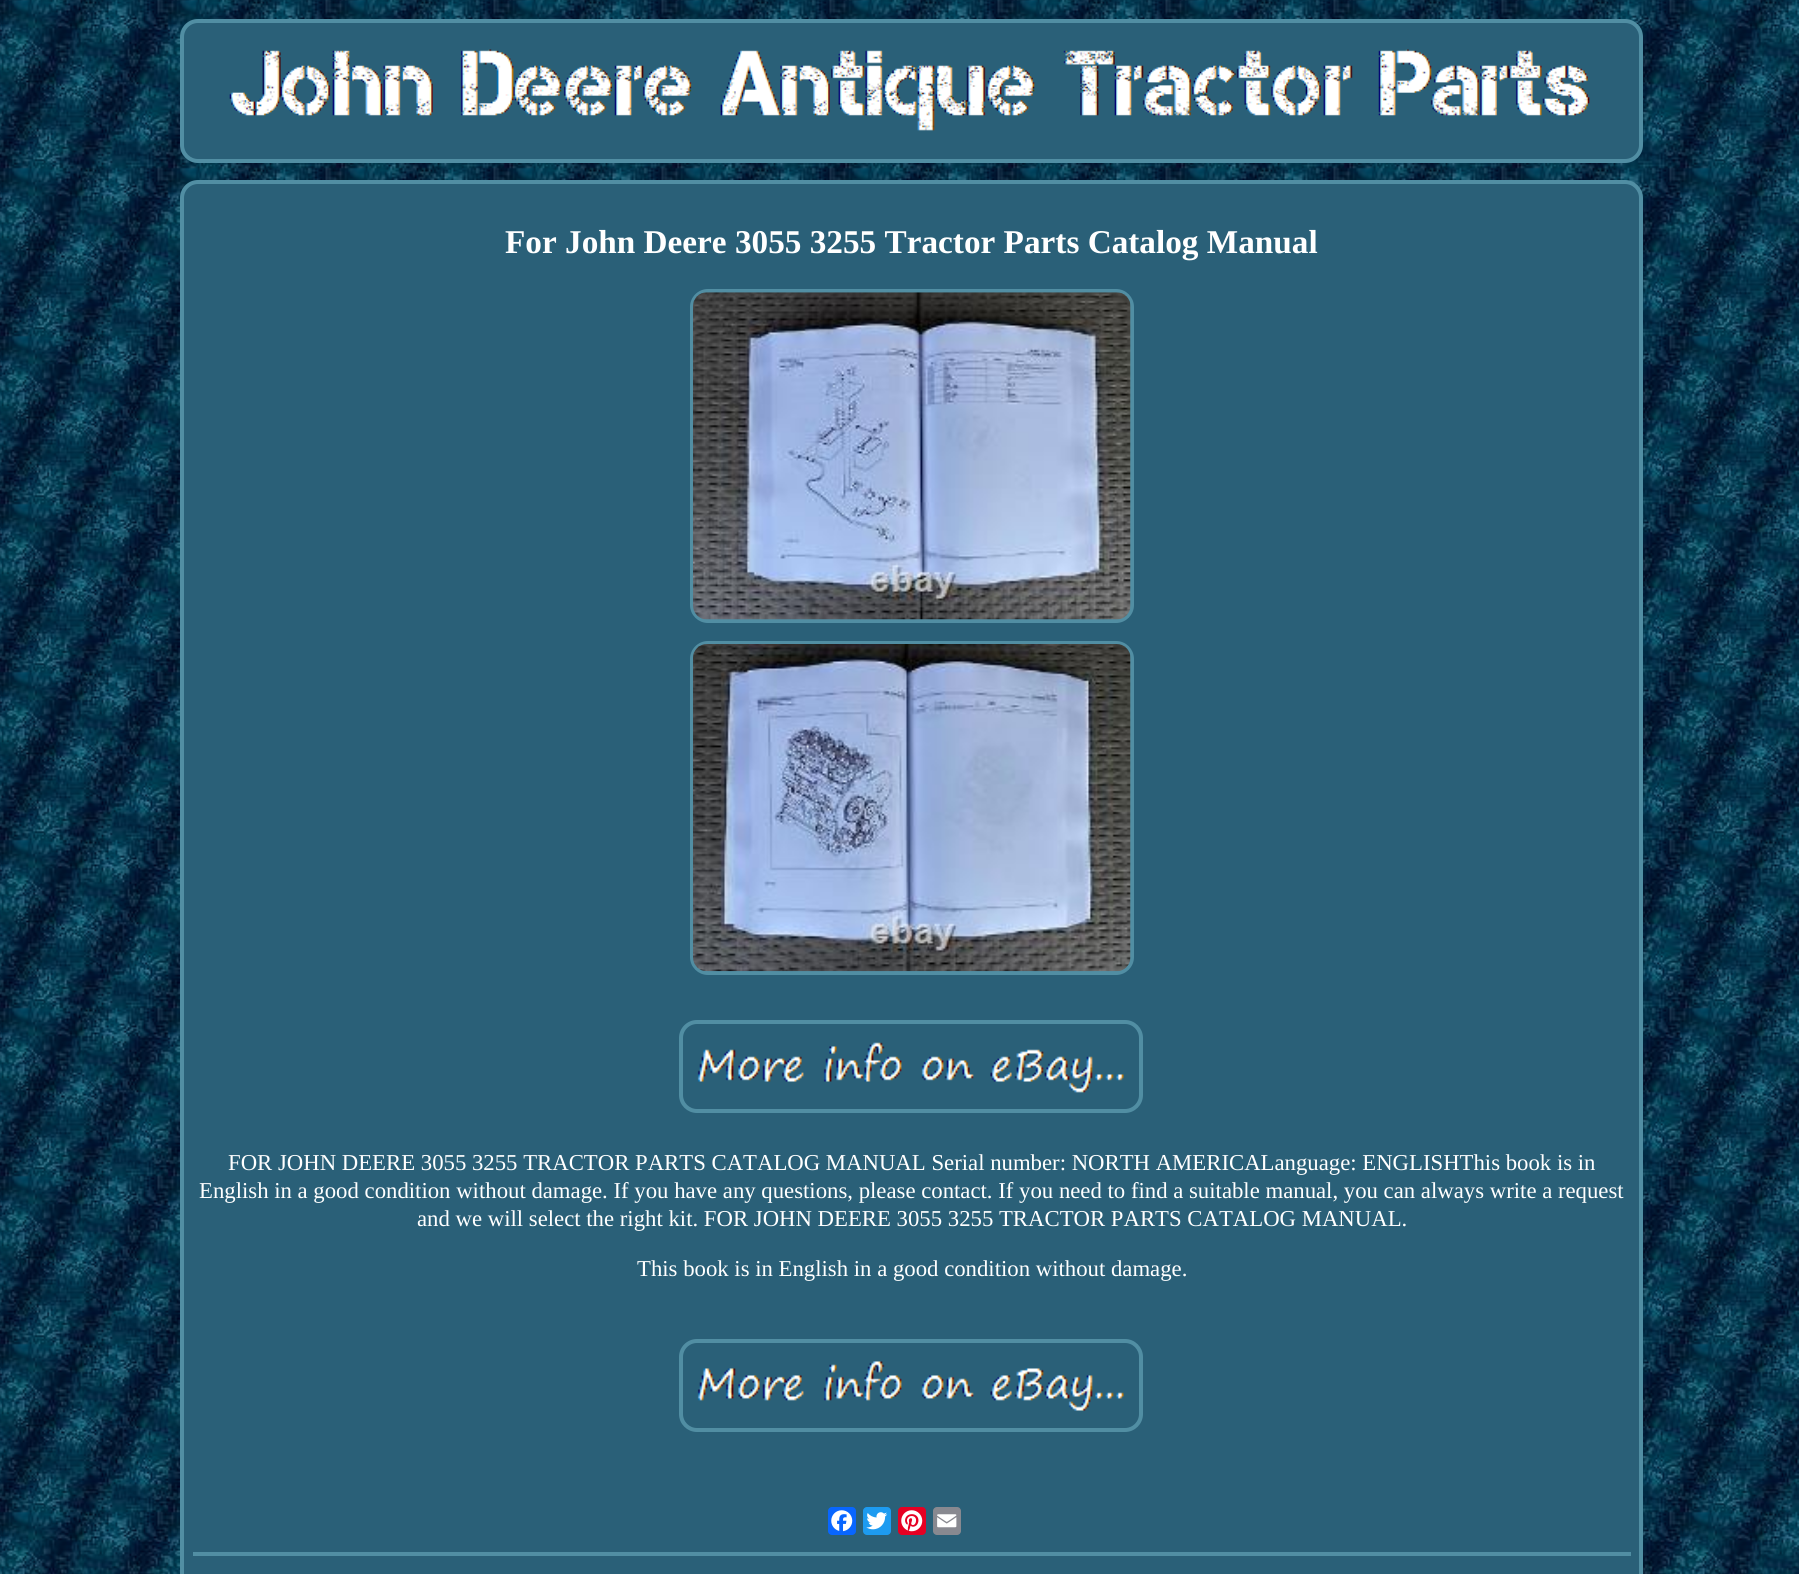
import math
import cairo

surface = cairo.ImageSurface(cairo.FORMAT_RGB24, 1799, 1574)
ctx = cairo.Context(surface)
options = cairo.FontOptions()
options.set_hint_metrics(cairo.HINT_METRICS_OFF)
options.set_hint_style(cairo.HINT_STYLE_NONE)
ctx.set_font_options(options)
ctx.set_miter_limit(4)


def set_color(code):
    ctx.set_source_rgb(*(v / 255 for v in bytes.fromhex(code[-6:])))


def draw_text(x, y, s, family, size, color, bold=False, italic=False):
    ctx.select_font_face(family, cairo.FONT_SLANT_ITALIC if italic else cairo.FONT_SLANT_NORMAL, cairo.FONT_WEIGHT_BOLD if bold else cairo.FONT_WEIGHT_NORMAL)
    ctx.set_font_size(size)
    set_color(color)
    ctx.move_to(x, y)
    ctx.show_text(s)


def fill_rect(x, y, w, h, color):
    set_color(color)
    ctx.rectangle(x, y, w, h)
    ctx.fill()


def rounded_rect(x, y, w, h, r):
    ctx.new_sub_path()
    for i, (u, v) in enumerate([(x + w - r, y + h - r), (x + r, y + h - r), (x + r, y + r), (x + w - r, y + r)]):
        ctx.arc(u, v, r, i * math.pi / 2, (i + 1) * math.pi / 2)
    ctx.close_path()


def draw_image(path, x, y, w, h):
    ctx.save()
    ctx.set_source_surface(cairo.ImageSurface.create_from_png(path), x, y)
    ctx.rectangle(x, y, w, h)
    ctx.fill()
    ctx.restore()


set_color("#ffffff")
ctx.paint()
draw_image("assets/img1.png", 0, 0, 1799, 1574)
set_color("#2a6078")
rounded_rect(182, 21, 1459, 140, 16)
ctx.fill_preserve()
set_color("#518ea3")
ctx.set_line_width(4)
ctx.stroke()
draw_image("assets/img2.png", 229, 49, 1361, 82)
set_color("#2a6078")
rounded_rect(182, 182, 1459, 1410, 16)
ctx.fill_preserve()
set_color("#518ea3")
ctx.stroke()
draw_text(505, 253, "For John Deere 3055 3255 Tractor Parts Catalog Manual", "Liberation Serif", 33.25, "#ffffff", bold=True)
rounded_rect(692, 291, 440, 330, 16)
set_color("#518ea3")
ctx.stroke()
draw_image("assets/img3.png", 693, 292, 438, 328)
rounded_rect(692, 643, 440, 330, 16)
ctx.stroke()
draw_image("assets/img4.png", 693, 644, 438, 328)
rounded_rect(681, 1022, 460, 89, 16)
ctx.stroke()
draw_image("assets/img5.png", 697, 1042, 427, 51)
draw_text(228, 1170, "FOR JOHN DEERE 3055 3255 TRACTOR PARTS CATALOG MANUAL Serial number: NORTH AMERICALanguage: ENGLISHThis book is in", "Liberation Serif", 22.75, "#ffffff")
draw_text(199, 1198, "English in a good condition without damage. If you have any questions, please contact. If you need to find a suitable manual, you can always write a request", "Liberation Serif", 22.75, "#ffffff")
draw_text(417, 1226, "and we will select the right kit. FOR JOHN DEERE 3055 3255 TRACTOR PARTS CATALOG MANUAL.", "Liberation Serif", 22.75, "#ffffff")
draw_text(637, 1276, "This book is in English in a good condition without damage.", "Liberation Serif", 22.75, "#ffffff")
rounded_rect(681, 1341, 460, 89, 16)
set_color("#518ea3")
ctx.stroke()
draw_image("assets/img6.png", 697, 1361, 427, 50)
set_color("#0866ff")
rounded_rect(828, 1507, 28, 28, 4)
ctx.fill()
draw_image("assets/img7.png", 831, 1510, 22, 22)
set_color("#1d9bf0")
rounded_rect(863, 1507, 28, 28, 4)
ctx.fill()
draw_image("assets/img8.png", 866, 1512, 22, 18)
set_color("#e60023")
rounded_rect(898, 1507, 28, 28, 4)
ctx.fill()
draw_image("assets/img9.png", 901, 1510, 22, 22)
set_color("#888990")
rounded_rect(933, 1507, 28, 28, 4)
ctx.fill()
draw_image("assets/img10.png", 937, 1514, 20, 14)
fill_rect(193, 1552, 1438, 4, "#518ea3")
surface.write_to_png("output.png")
